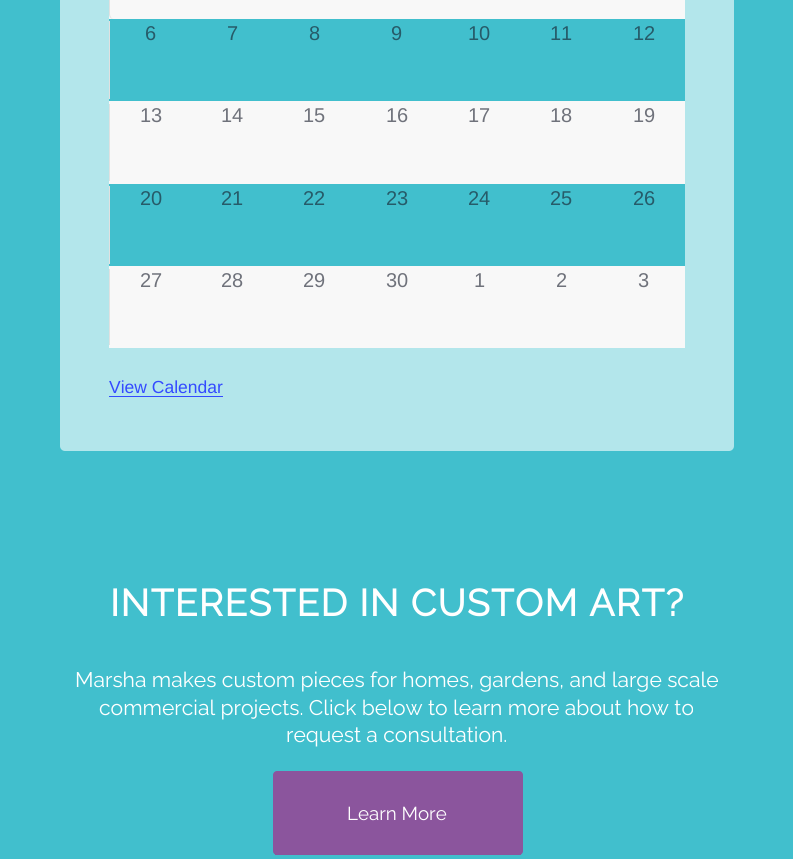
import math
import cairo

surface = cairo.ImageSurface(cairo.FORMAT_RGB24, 793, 859)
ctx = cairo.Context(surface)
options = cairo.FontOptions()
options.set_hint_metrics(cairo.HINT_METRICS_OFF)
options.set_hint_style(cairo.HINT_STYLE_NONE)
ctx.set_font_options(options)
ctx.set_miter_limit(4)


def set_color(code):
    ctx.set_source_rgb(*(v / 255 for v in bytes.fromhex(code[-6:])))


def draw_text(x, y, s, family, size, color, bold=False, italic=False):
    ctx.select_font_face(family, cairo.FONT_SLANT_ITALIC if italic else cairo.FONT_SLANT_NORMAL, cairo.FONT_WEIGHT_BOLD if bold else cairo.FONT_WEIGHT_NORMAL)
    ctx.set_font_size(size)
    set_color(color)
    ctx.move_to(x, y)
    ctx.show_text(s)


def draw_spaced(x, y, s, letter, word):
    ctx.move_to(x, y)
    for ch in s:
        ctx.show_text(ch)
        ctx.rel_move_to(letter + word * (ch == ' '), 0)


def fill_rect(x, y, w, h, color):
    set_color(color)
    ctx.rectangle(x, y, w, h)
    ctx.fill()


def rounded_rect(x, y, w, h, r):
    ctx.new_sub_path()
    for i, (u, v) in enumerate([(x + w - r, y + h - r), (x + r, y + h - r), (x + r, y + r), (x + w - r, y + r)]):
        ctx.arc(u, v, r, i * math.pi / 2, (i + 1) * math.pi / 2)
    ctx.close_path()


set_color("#41bfcd")
ctx.paint()
set_color("#b3e6eb")
rounded_rect(60, -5, 674, 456, 5)
ctx.fill()
fill_rect(109, 0, 576, 348, "#f8f8f8")
set_color("#e1e1e1")
ctx.set_fill_rule(cairo.FILL_RULE_EVEN_ODD)
ctx.new_path()
ctx.move_to(114, -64)
ctx.line_to(186, -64)
ctx.curve_to(189, -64, 191, -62, 191, -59)
ctx.line_to(191, 14)
ctx.curve_to(191, 17, 189, 19, 186, 19)
ctx.line_to(114, 19)
ctx.curve_to(111, 19, 109, 17, 109, 14)
ctx.line_to(109, -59)
ctx.curve_to(109, -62, 111, -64, 114, -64)
ctx.close_path()
ctx.move_to(114, -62)
ctx.line_to(186, -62)
ctx.curve_to(189, -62, 191, -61, 191, -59)
ctx.line_to(191, 14)
ctx.curve_to(191, 17, 189, 19, 186, 19)
ctx.line_to(114, 19)
ctx.curve_to(112, 19, 110, 17, 110, 14)
ctx.line_to(110, -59)
ctx.curve_to(110, -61, 112, -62, 114, -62)
ctx.close_path()
ctx.fill()
fill_rect(109, 19, 576, 82, "#41bfcd")
fill_rect(109, 21, 1, 78, "#e1e1e1")
draw_text(145, 40, "6", "Liberation Sans", 20, "#265b69")
draw_text(227, 40, "7", "Liberation Sans", 20, "#265b69")
draw_text(309, 40, "8", "Liberation Sans", 20, "#265b69")
draw_text(391, 40, "9", "Liberation Sans", 20, "#265b69")
draw_text(468, 40, "10", "Liberation Sans", 20, "#265b69")
draw_text(550, 40, "11", "Liberation Sans", 20, "#265b69")
draw_text(633, 40, "12", "Liberation Sans", 20, "#265b69")
fill_rect(109, 104, 1, 77, "#e1e1e1")
draw_text(140, 122, "13", "Liberation Sans", 20, "#6f727b")
draw_text(221, 122, "14", "Liberation Sans", 20, "#6f727b")
draw_text(303, 122, "15", "Liberation Sans", 20, "#6f727b")
draw_text(386, 122, "16", "Liberation Sans", 20, "#6f727b")
draw_text(468, 122, "17", "Liberation Sans", 20, "#6f727b")
draw_text(550, 122, "18", "Liberation Sans", 20, "#6f727b")
draw_text(633, 122, "19", "Liberation Sans", 20, "#6f727b")
fill_rect(109, 184, 576, 82, "#41bfcd")
fill_rect(109, 186, 1, 78, "#e1e1e1")
draw_text(140, 205, "20", "Liberation Sans", 20, "#265b69")
draw_text(221, 205, "21", "Liberation Sans", 20, "#265b69")
draw_text(303, 205, "22", "Liberation Sans", 20, "#265b69")
draw_text(386, 205, "23", "Liberation Sans", 20, "#265b69")
draw_text(468, 205, "24", "Liberation Sans", 20, "#265b69")
draw_text(550, 205, "25", "Liberation Sans", 20, "#265b69")
draw_text(633, 205, "26", "Liberation Sans", 20, "#265b69")
fill_rect(109, 269, 1, 76, "#e1e1e1")
draw_text(140, 287, "27", "Liberation Sans", 20, "#6f727b")
draw_text(221, 287, "28", "Liberation Sans", 20, "#6f727b")
draw_text(303, 287, "29", "Liberation Sans", 20, "#6f727b")
draw_text(386, 287, "30", "Liberation Sans", 20, "#6f727b")
draw_text(474, 287, "1", "Liberation Sans", 20, "#6f727b")
draw_text(556, 287, "2", "Liberation Sans", 20, "#6f727b")
draw_text(638, 287, "3", "Liberation Sans", 20, "#6f727b")
draw_text(109, 393, "View Calendar", "Liberation Sans", 17.5, "#334aff")
fill_rect(109, 396, 114, 1, "#334aff")
ctx.select_font_face("Raleway", cairo.FONT_SLANT_NORMAL, cairo.FONT_WEIGHT_BOLD)
ctx.set_font_size(37.4)
set_color("#ffffff")
draw_spaced(110, 616, "INTERESTED IN CUSTOM ART?", 1.25, 0)
draw_text(75, 687, "Marsha makes custom pieces for homes, gardens, and large scale", "Raleway Thin", 21.1, "#ffffff")
draw_text(99, 715, "commercial projects. Click below to learn more about how to", "Raleway Thin", 21.1, "#ffffff")
draw_text(286, 742, "request a consultation.", "Raleway Thin", 21.1, "#ffffff")
set_color("#8b559d")
rounded_rect(273, 771, 250, 84, 4)
ctx.fill()
fill_rect(275, 854, 246, 1, "#8b559d")
draw_text(347, 820, "Learn More", "Raleway Thin", 18.75, "#ffffff")
surface.write_to_png("output.png")
